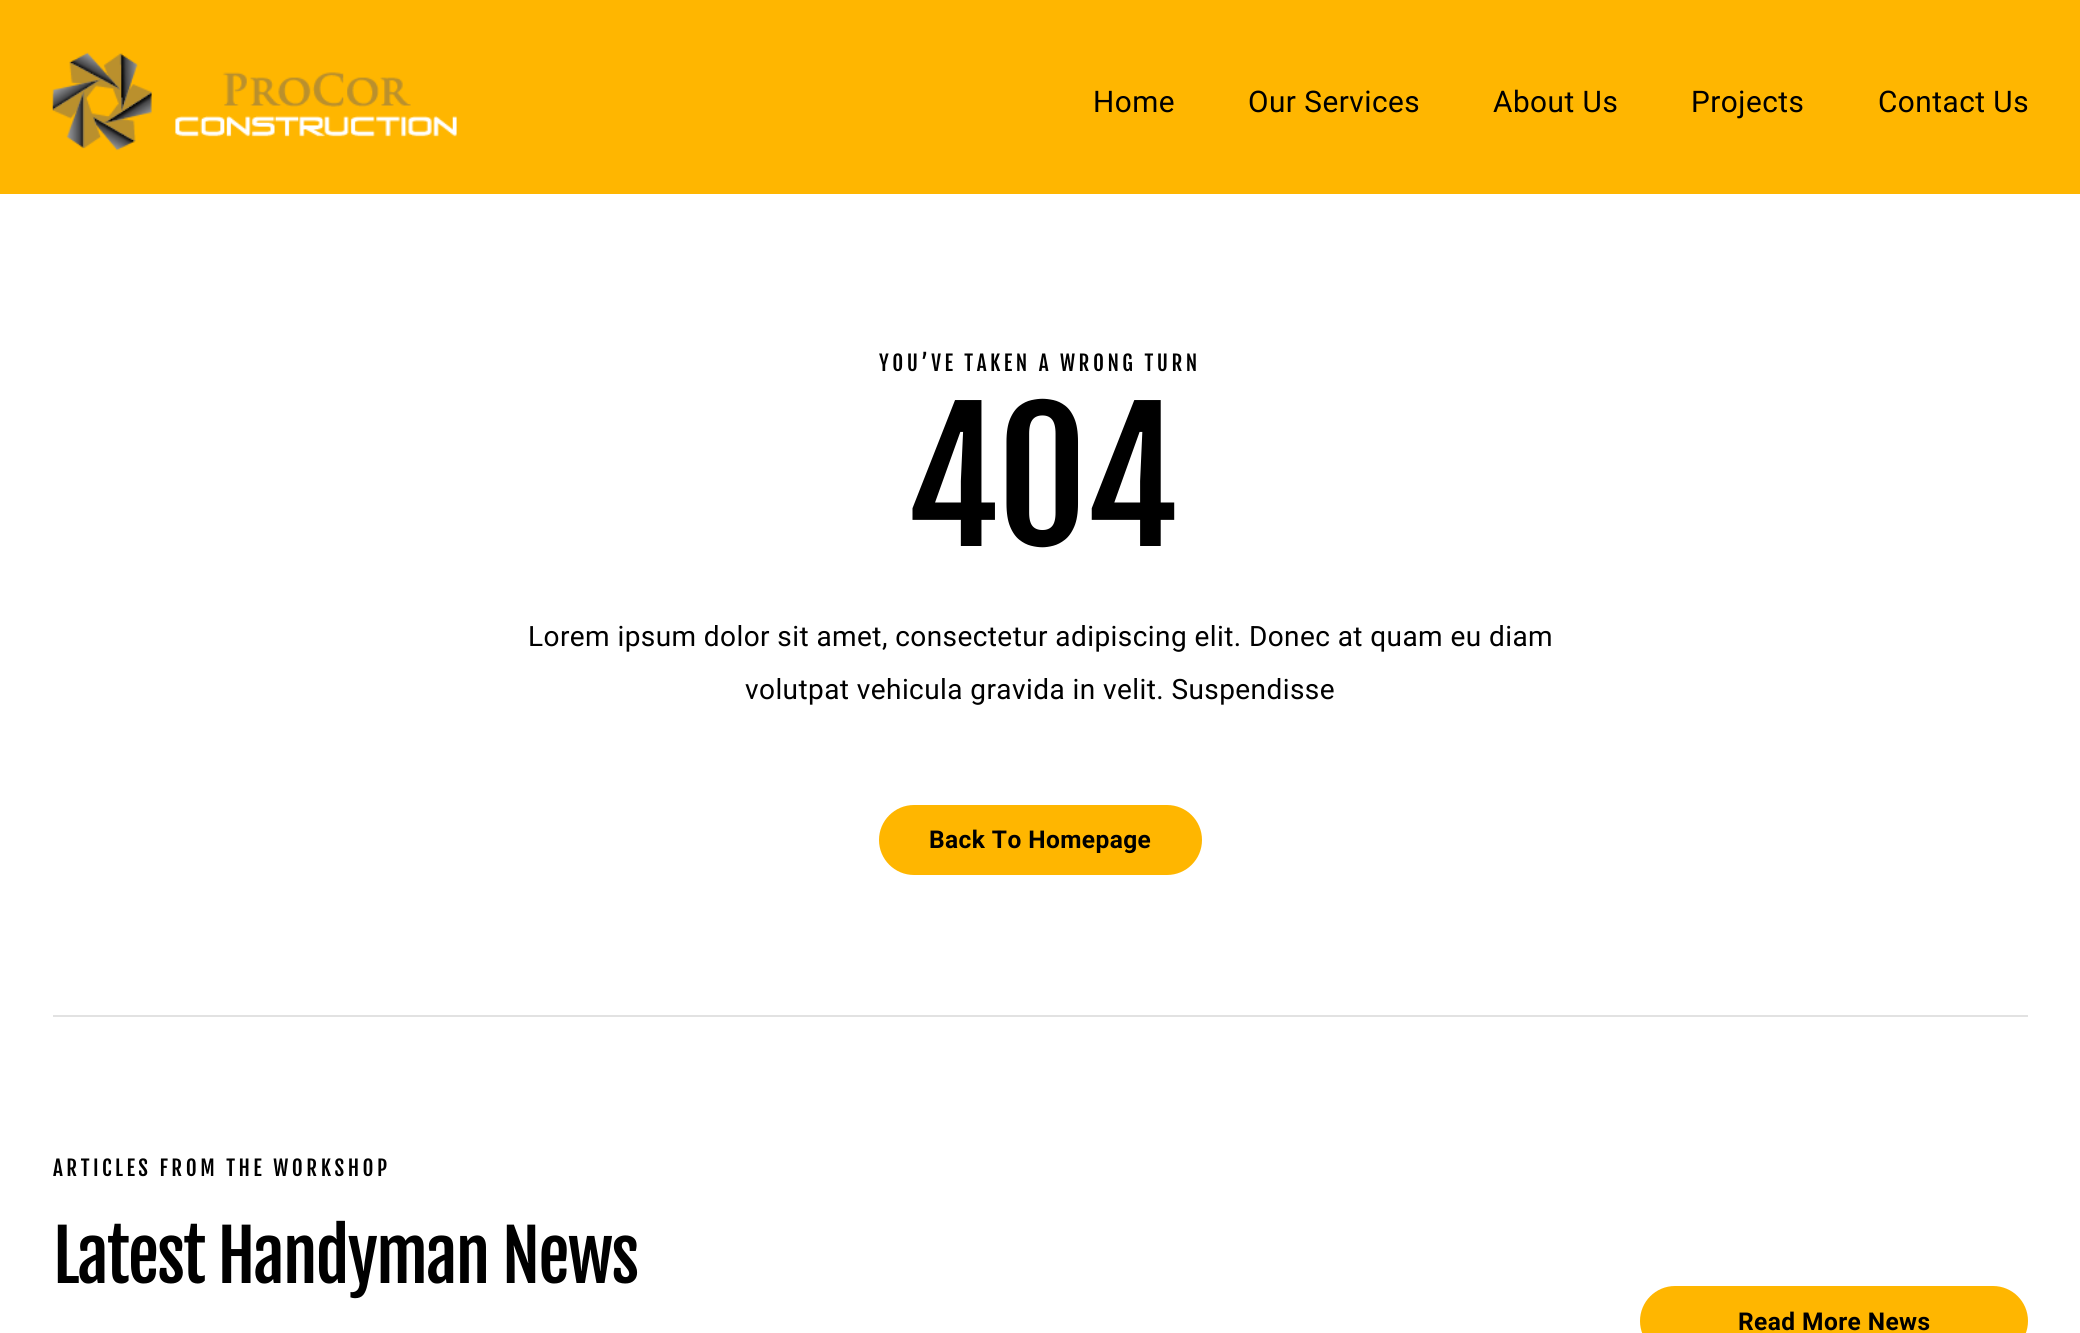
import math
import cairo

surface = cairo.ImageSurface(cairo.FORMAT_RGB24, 2080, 1333)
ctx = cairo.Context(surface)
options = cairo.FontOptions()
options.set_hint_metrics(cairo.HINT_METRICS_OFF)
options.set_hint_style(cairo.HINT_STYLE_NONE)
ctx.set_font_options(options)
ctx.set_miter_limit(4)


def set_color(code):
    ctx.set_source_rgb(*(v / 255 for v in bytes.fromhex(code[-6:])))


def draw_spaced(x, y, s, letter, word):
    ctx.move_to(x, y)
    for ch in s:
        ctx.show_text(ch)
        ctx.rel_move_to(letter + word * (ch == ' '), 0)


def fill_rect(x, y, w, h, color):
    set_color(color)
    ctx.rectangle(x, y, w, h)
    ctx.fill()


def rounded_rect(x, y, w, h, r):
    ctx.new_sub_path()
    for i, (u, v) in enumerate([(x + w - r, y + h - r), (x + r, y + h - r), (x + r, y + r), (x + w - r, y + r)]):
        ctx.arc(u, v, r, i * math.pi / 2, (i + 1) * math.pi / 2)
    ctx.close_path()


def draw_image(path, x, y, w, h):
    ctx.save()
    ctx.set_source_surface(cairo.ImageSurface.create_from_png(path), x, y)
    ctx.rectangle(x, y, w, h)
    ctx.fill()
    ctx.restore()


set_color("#ffffff")
ctx.paint()
fill_rect(0, 0, 2080, 194, "#ffb600")
draw_image("assets/img1.png", 52, 52, 405, 99)
ctx.select_font_face("Roboto")
ctx.set_font_size(29.75)
set_color("#000000")
draw_spaced(1093, 112, "Home", 0.5, 0)
draw_spaced(1248, 112, "Our Services", 0.5, 0)
draw_spaced(1493, 112, "About Us", 0.5, 0)
draw_spaced(1691, 112, "Projects", 0.5, 0)
draw_spaced(1878, 112, "Contact Us", 0.5, 0)
ctx.select_font_face("Fjalla One")
ctx.set_font_size(21)
draw_spaced(879, 371, "YOU’VE TAKEN A WRONG TURN", 3.5, 0)
ctx.set_font_size(175)
draw_spaced(906, 546, "404", -2.5, 0)
ctx.select_font_face("Roboto")
ctx.set_font_size(28)
draw_spaced(528, 646, "Lorem ipsum dolor sit amet, consectetur adipiscing elit. Donec at quam eu diam", 0.42, 0)
draw_spaced(745, 699, "volutpat vehicula gravida in velit. Suspendisse", 0.42, 0)
set_color("#ffb600")
rounded_rect(879, 805, 323, 70, 35)
ctx.fill()
ctx.select_font_face("Roboto", cairo.FONT_SLANT_NORMAL, cairo.FONT_WEIGHT_BOLD)
ctx.set_font_size(24.5)
set_color("#000000")
draw_spaced(929, 848, "Back To Homepage", 0.42, 0)
fill_rect(53, 1015, 1975, 2, "#e2e2e2")
ctx.select_font_face("Fjalla One")
ctx.set_font_size(21)
set_color("#000000")
draw_spaced(53, 1176, "ARTICLES FROM THE WORKSHOP", 3.5, 0)
ctx.set_font_size(70)
draw_spaced(53, 1283, "Latest Handyman News", -1.75, 0)
set_color("#ffb600")
rounded_rect(1640, 1286, 388, 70, 35)
ctx.fill()
ctx.select_font_face("Roboto", cairo.FONT_SLANT_NORMAL, cairo.FONT_WEIGHT_BOLD)
ctx.set_font_size(24.5)
set_color("#000000")
draw_spaced(1738, 1330, "Read More News", 0.42, 0)
surface.write_to_png("output.png")
